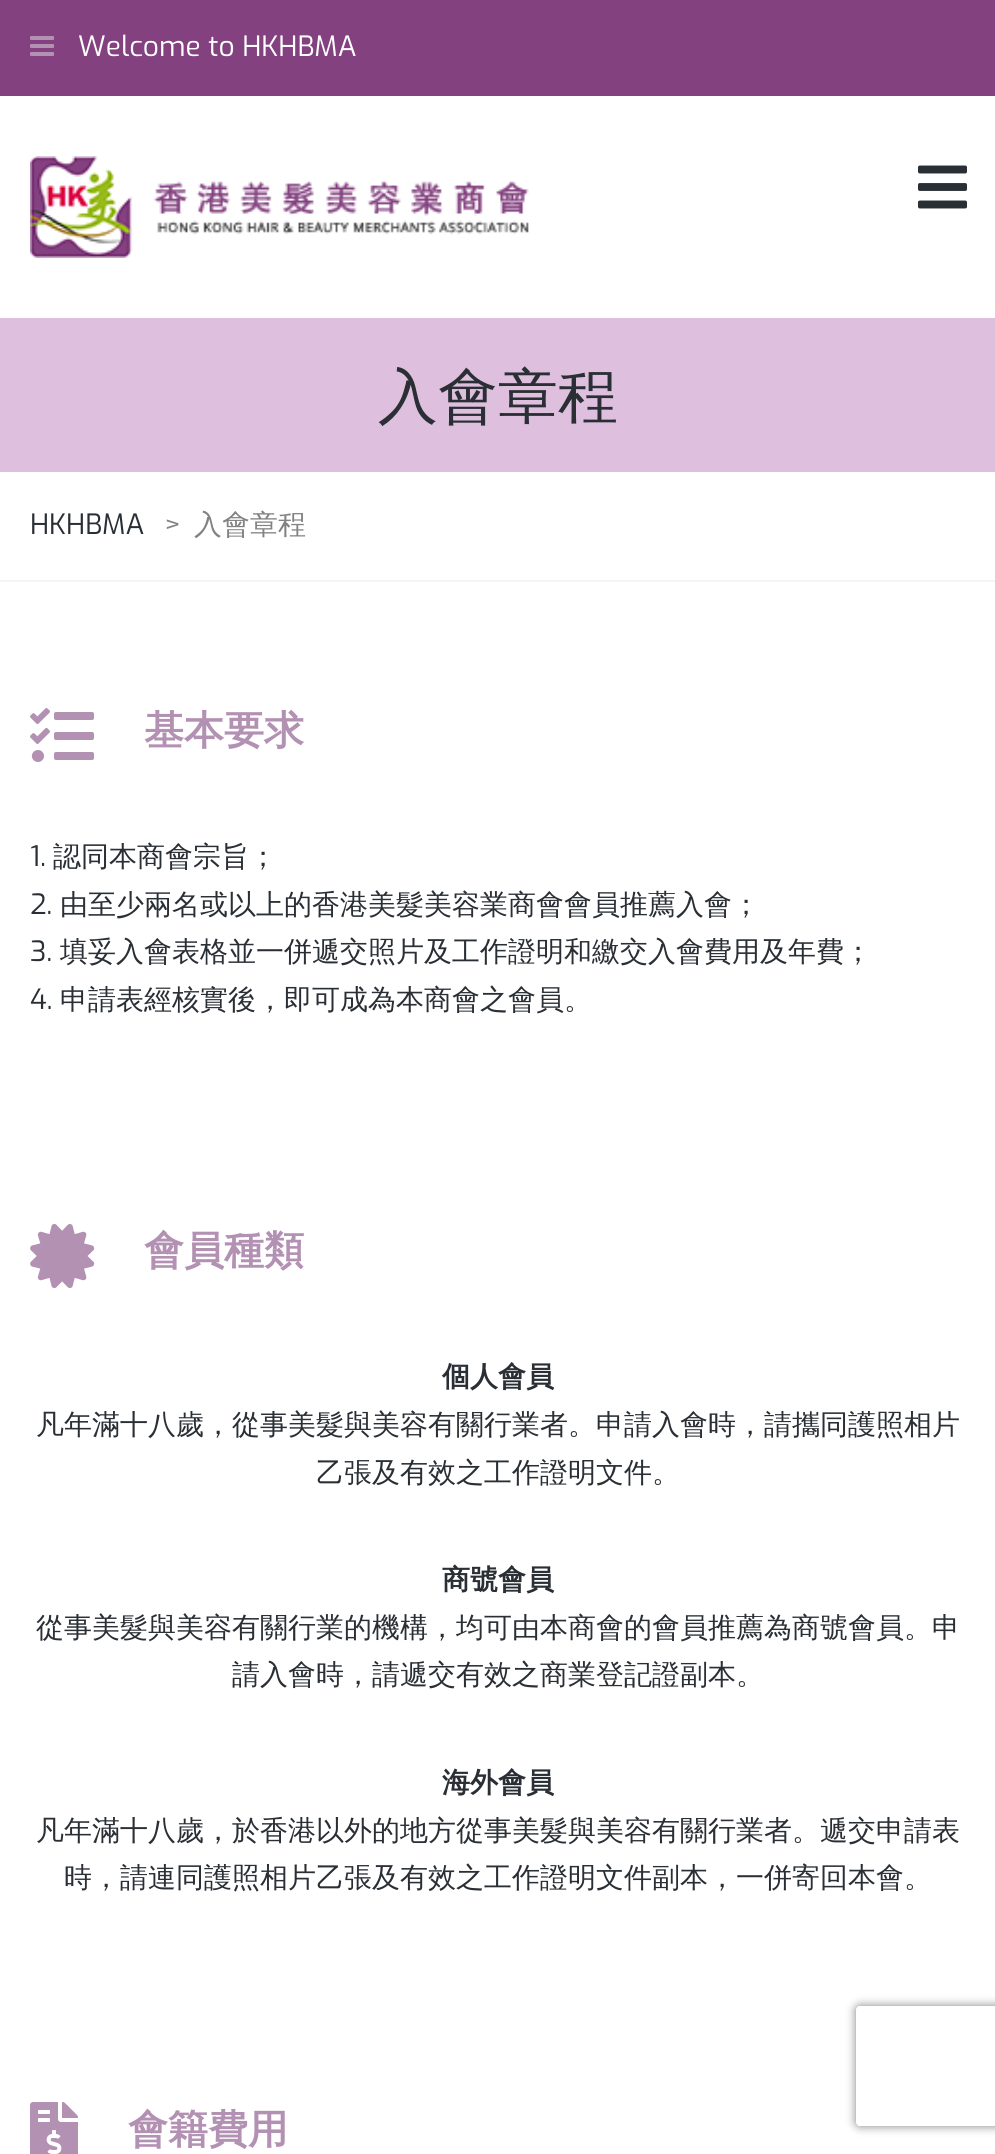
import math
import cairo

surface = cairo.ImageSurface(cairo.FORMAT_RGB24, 995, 2154)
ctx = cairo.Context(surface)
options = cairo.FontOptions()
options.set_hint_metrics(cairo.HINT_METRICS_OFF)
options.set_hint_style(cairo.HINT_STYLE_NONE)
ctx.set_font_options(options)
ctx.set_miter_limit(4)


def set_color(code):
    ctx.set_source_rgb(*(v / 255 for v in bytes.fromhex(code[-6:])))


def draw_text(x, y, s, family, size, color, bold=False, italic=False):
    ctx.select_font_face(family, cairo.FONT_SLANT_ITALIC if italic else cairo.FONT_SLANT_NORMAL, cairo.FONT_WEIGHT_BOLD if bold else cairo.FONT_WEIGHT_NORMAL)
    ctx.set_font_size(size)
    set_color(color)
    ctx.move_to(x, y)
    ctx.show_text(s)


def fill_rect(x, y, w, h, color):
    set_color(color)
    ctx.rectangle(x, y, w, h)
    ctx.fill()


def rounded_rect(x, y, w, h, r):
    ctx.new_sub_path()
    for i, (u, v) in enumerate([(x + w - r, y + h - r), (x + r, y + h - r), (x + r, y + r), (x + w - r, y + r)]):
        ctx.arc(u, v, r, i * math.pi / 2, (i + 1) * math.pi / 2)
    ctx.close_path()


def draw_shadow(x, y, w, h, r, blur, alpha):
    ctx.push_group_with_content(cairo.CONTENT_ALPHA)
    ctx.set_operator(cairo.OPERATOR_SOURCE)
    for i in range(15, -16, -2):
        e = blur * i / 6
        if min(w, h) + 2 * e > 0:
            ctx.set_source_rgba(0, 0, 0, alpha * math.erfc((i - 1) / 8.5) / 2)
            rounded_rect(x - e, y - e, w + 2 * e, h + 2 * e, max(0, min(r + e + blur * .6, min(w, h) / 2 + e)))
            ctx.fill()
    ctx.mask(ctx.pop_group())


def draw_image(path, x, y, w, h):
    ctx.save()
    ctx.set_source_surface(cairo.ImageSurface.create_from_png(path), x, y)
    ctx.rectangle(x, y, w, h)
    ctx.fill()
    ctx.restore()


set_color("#ffffff")
ctx.paint()
fill_rect(0, 0, 995, 96, "#834180")
draw_image("assets/img1.png", 30, 36, 24, 20)
draw_text(78, 56, "Welcome to HKHBMA", "Exo", 28, "#ffffff")
draw_image("assets/img2.png", 30, 156, 499, 102)
draw_image("assets/img3.png", 918, 165, 49, 44)
fill_rect(0, 318, 995, 154, "#debfde")
draw_text(378, 417, "入會章程", "WenQuanYi Zen Hei Medium", 60, "#2a2f35")
fill_rect(0, 580, 995, 2, "#f5f5f5")
draw_text(30, 534, "HKHBMA", "Exo", 28, "#2a2f35")
draw_text(164, 534, ">", "Exo", 28, "#828282")
draw_text(194, 534, "入會章程", "WenQuanYi Zen Hei Medium", 28, "#828282")
draw_image("assets/img4.png", 30, 708, 64, 54)
draw_text(144, 744, "基本要求", "WenQuanYi Zen Hei", 40, "#b391b3", bold=True)
draw_text(30, 866, "1.", "Exo", 28, "#2a2f35")
draw_text(53, 866, "認同本商會宗旨；", "WenQuanYi Zen Hei Medium", 28, "#2a2f35")
draw_text(30, 914, "2.", "Exo", 28, "#2a2f35")
draw_text(60, 914, "由至少兩名或以上的香港美髮美容業商會會員推薦入會；", "WenQuanYi Zen Hei Medium", 28, "#2a2f35")
draw_text(30, 961, "3.", "Exo", 28, "#2a2f35")
draw_text(60, 961, "填妥入會表格並一併遞交照片及工作證明和繳交入會費用及年費；", "WenQuanYi Zen Hei Medium", 28, "#2a2f35")
draw_text(30, 1009, "4.", "Exo", 28, "#2a2f35")
draw_text(60, 1009, "申請表經核實後，即可成為本商會之會員。", "WenQuanYi Zen Hei Medium", 28, "#2a2f35")
draw_image("assets/img5.png", 30, 1224, 65, 64)
draw_text(144, 1264, "會員種類", "WenQuanYi Zen Hei", 40, "#b391b3", bold=True)
draw_text(442, 1386, "個人會員", "WenQuanYi Zen Hei", 28, "#2a2f35", bold=True)
draw_text(36, 1434, "凡年滿十八歲，從事美髮與美容有關行業者。申請入會時，請攜同護照相片", "WenQuanYi Zen Hei Medium", 28, "#2a2f35")
draw_text(316, 1482, "乙張及有效之工作證明文件。", "WenQuanYi Zen Hei Medium", 28, "#2a2f35")
draw_text(442, 1589, "商號會員", "WenQuanYi Zen Hei", 28, "#2a2f35", bold=True)
draw_text(36, 1637, "從事美髮與美容有關行業的機構，均可由本商會的會員推薦為商號會員。申", "WenQuanYi Zen Hei Medium", 28, "#2a2f35")
draw_text(232, 1684, "請入會時，請遞交有效之商業登記證副本。", "WenQuanYi Zen Hei Medium", 28, "#2a2f35")
draw_text(442, 1792, "海外會員", "WenQuanYi Zen Hei", 28, "#2a2f35", bold=True)
draw_text(36, 1840, "凡年滿十八歲，於香港以外的地方從事美髮與美容有關行業者。遞交申請表", "WenQuanYi Zen Hei Medium", 28, "#2a2f35")
draw_text(64, 1887, "時，請連同護照相片乙張及有效之工作證明文件副本，一併寄回本會。", "WenQuanYi Zen Hei Medium", 28, "#2a2f35")
draw_image("assets/img6.png", 30, 2102, 48, 52)
draw_text(128, 2143, "會籍費用", "WenQuanYi Zen Hei", 40, "#b391b3", bold=True)
ctx.save()
ctx.set_fill_rule(cairo.FILL_RULE_EVEN_ODD)
ctx.new_path()
ctx.move_to(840, 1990)
ctx.line_to(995, 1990)
ctx.line_to(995, 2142)
ctx.line_to(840, 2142)
ctx.close_path()
ctx.move_to(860, 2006)
ctx.line_to(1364, 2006)
ctx.curve_to(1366, 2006, 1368, 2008, 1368, 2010)
ctx.line_to(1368, 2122)
ctx.curve_to(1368, 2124, 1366, 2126, 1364, 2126)
ctx.line_to(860, 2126)
ctx.curve_to(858, 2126, 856, 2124, 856, 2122)
ctx.line_to(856, 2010)
ctx.curve_to(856, 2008, 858, 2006, 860, 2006)
ctx.close_path()
ctx.clip()
set_color("#808080")
draw_shadow(856, 2006, 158, 120, 4, 5, 1)
ctx.restore()
surface.write_to_png("output.png")
